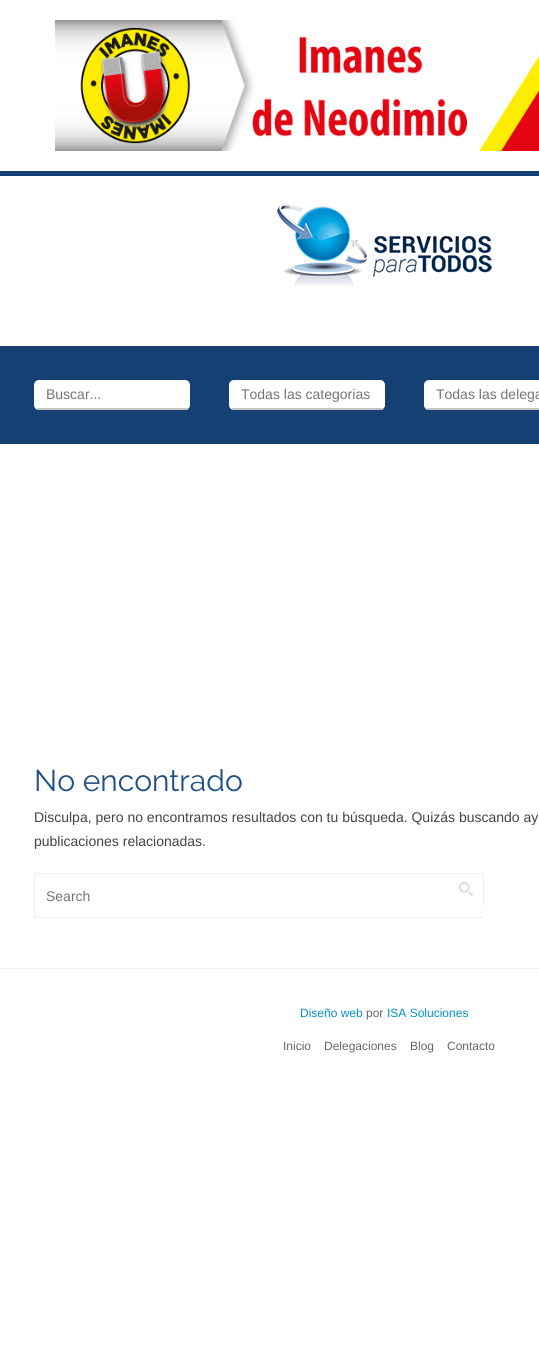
import math
import cairo

surface = cairo.ImageSurface(cairo.FORMAT_RGB24, 539, 1358)
ctx = cairo.Context(surface)
options = cairo.FontOptions()
options.set_hint_metrics(cairo.HINT_METRICS_OFF)
options.set_hint_style(cairo.HINT_STYLE_NONE)
ctx.set_font_options(options)
ctx.set_miter_limit(4)


def set_color(code):
    ctx.set_source_rgb(*(v / 255 for v in bytes.fromhex(code[-6:])))


def draw_text(x, y, s, family, size, color, bold=False, italic=False):
    ctx.select_font_face(family, cairo.FONT_SLANT_ITALIC if italic else cairo.FONT_SLANT_NORMAL, cairo.FONT_WEIGHT_BOLD if bold else cairo.FONT_WEIGHT_NORMAL)
    ctx.set_font_size(size)
    set_color(color)
    ctx.move_to(x, y)
    ctx.show_text(s)


def fill_rect(x, y, w, h, color):
    set_color(color)
    ctx.rectangle(x, y, w, h)
    ctx.fill()


def rounded_rect(x, y, w, h, r):
    ctx.new_sub_path()
    for i, (u, v) in enumerate([(x + w - r, y + h - r), (x + r, y + h - r), (x + r, y + r), (x + w - r, y + r)]):
        ctx.arc(u, v, r, i * math.pi / 2, (i + 1) * math.pi / 2)
    ctx.close_path()


def draw_image(path, x, y, w, h):
    ctx.save()
    ctx.set_source_surface(cairo.ImageSurface.create_from_png(path), x, y)
    ctx.rectangle(x, y, w, h)
    ctx.fill()
    ctx.restore()


set_color("#ffffff")
ctx.paint()
draw_image("assets/img1.png", 55, 20, 484, 131)
fill_rect(0, 171, 539, 5, "#144073")
draw_image("assets/img2.png", 277, 203, 215, 83)
fill_rect(0, 346, 539, 98, "#144073")
set_color("#ffffff")
rounded_rect(34, 380, 156, 30, 5)
ctx.fill()
fill_rect(37, 408, 151, 2, "#c4c4c4")
draw_text(46, 399, "Buscar...", "Liberation Sans", 14, "#757575")
set_color("#ffffff")
rounded_rect(229, 380, 156, 30, 5)
ctx.fill()
fill_rect(232, 408, 151, 2, "#c4c4c4")
draw_text(241, 399, "Todas las categorias", "Liberation Sans", 14, "#757575")
set_color("#ffffff")
rounded_rect(424, 380, 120, 30, 5)
ctx.fill()
fill_rect(427, 408, 112, 2, "#c4c4c4")
draw_text(436, 399, "Todas las delega", "Liberation Sans", 14, "#757575")
draw_text(34, 791, "No encontrado", "Raleway", 30, "#1e4f87")
draw_text(34, 822, "Disculpa, pero no encontramos resultados con tu búsqueda. Quizás buscando ay", "Liberation Sans", 14, "#444444")
draw_text(34, 846, "publicaciones relacionadas.", "Liberation Sans", 14, "#444444")
ctx.save()
ctx.rectangle(34, 873, 450, 45)
ctx.clip()
ctx.rectangle(34.5, 873.5, 462, 44)
set_color("#eeeeee")
ctx.set_line_width(1)
ctx.stroke()
ctx.restore()
draw_text(46, 901, "Search", "Liberation Sans", 14, "#757575")
draw_image("assets/img3.png", 458, 882, 15, 14)
fill_rect(483, 873, 1, 33, "#eeeeee")
fill_rect(0, 968, 539, 1, "#eeeeee")
draw_text(300, 1017, "Diseño web", "Liberation Sans", 12, "#0291ca")
draw_text(366, 1017, "por", "Liberation Sans", 12, "#666666")
draw_text(387, 1017, "ISA Soluciones", "Liberation Sans", 12, "#0291ca")
draw_text(283, 1050, "Inicio", "Liberation Sans", 12, "#666666")
draw_text(324, 1050, "Delegaciones", "Liberation Sans", 12, "#666666")
draw_text(410, 1050, "Blog", "Liberation Sans", 12, "#666666")
draw_text(447, 1050, "Contacto", "Liberation Sans", 12, "#666666")
surface.write_to_png("output.png")
